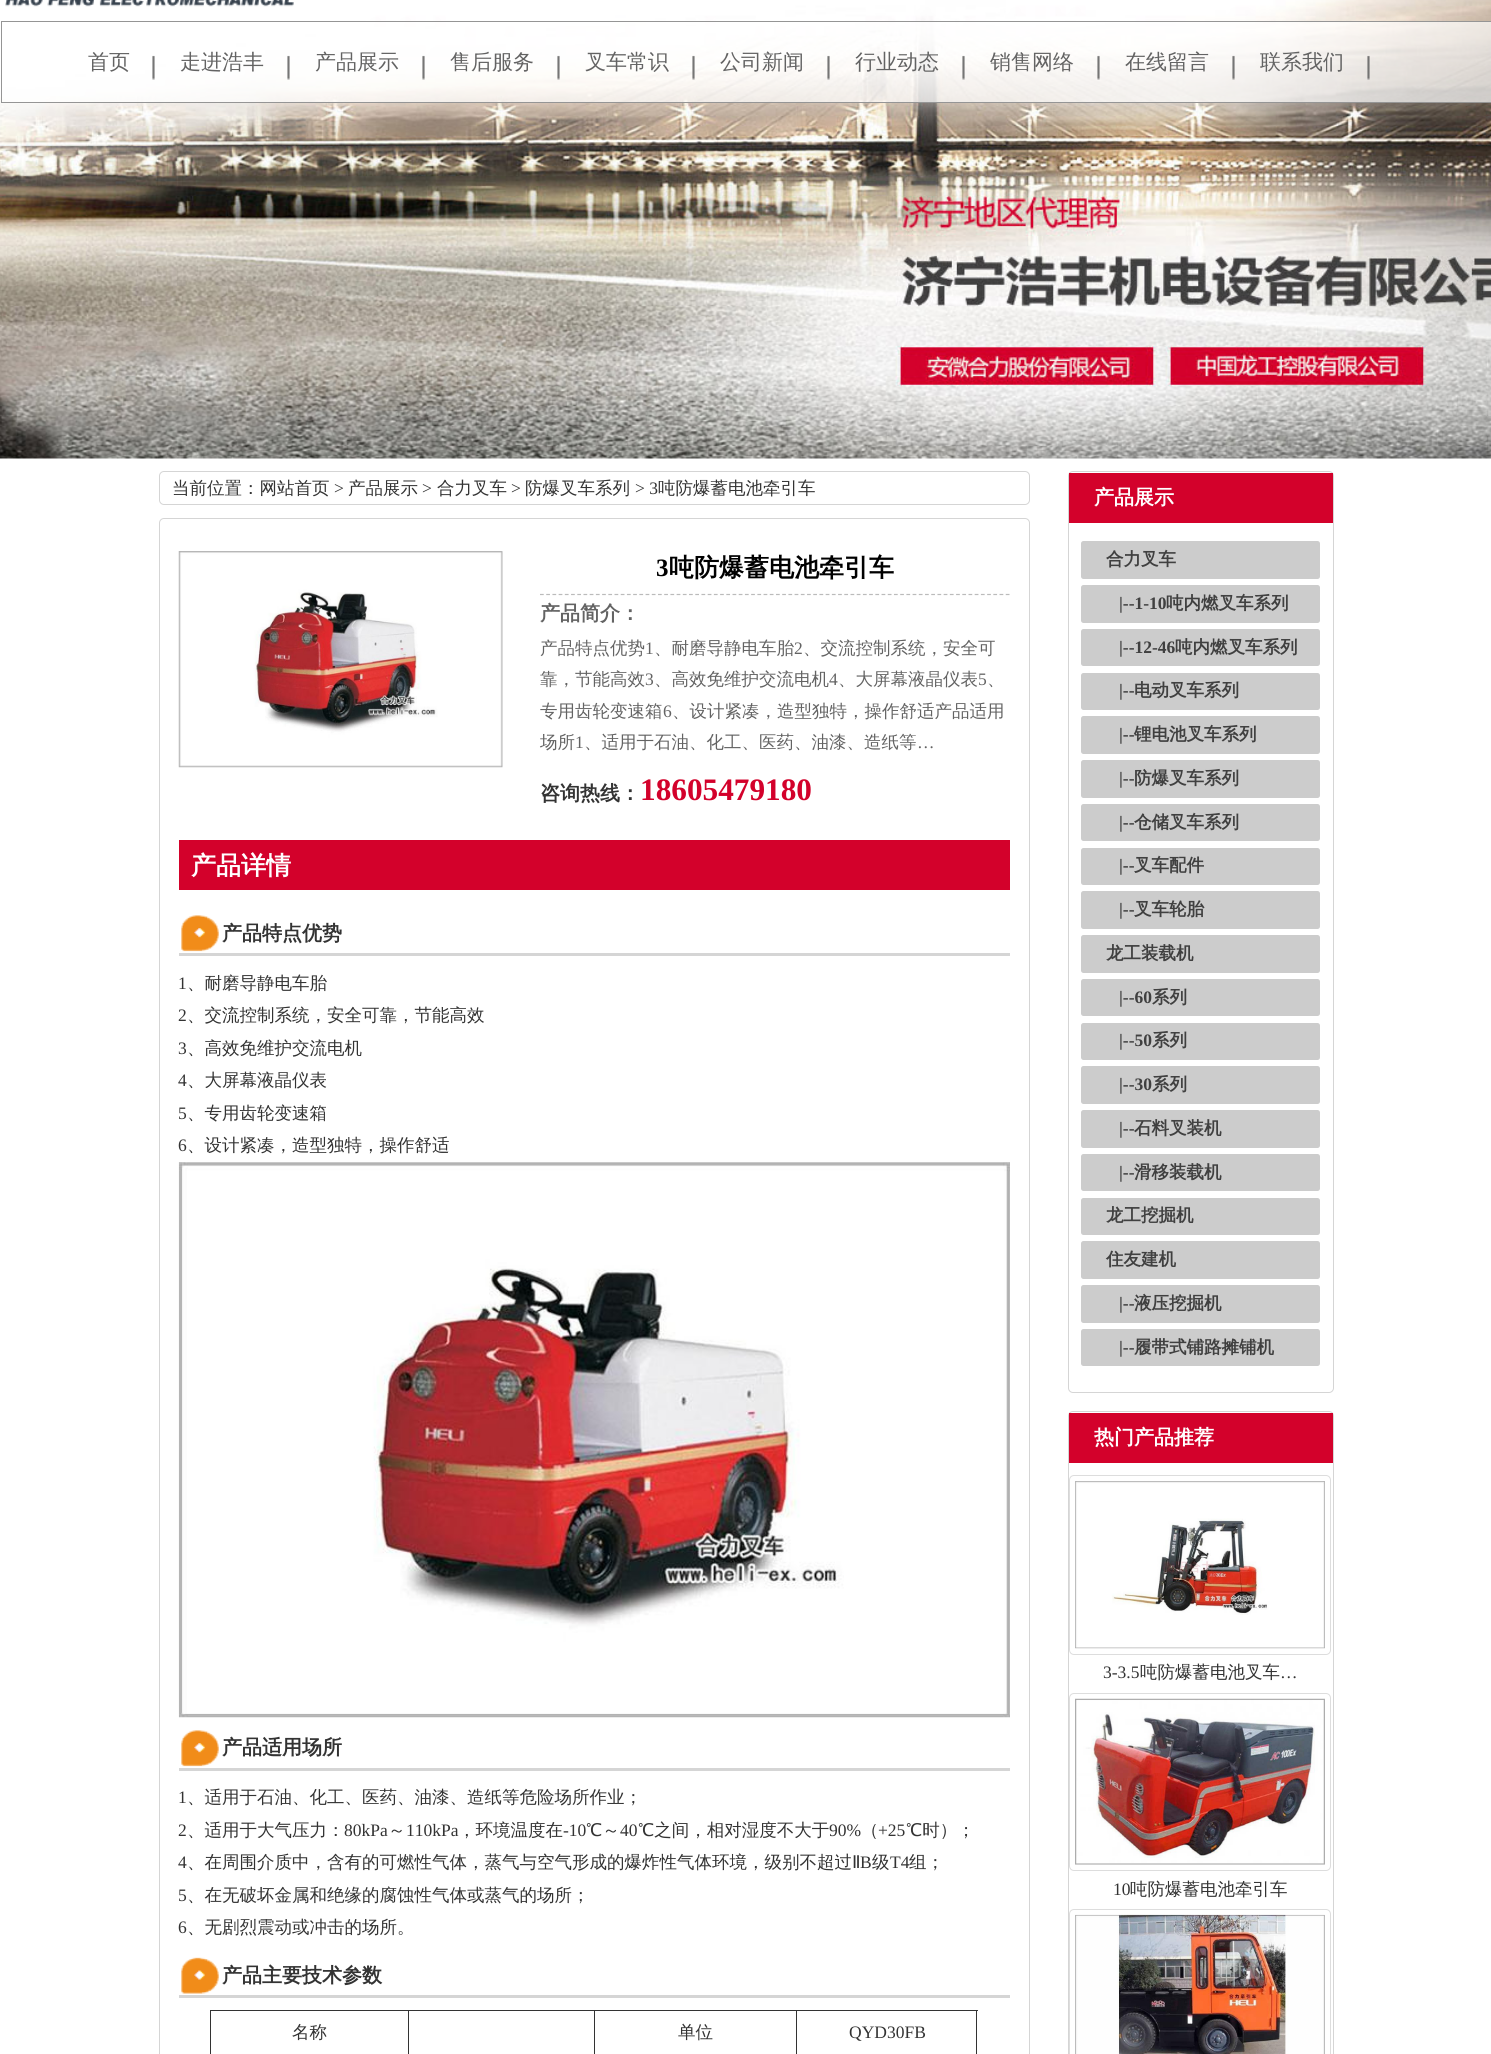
import math
import cairo

surface = cairo.ImageSurface(cairo.FORMAT_RGB24, 1491, 2054)
ctx = cairo.Context(surface)
options = cairo.FontOptions()
options.set_hint_metrics(cairo.HINT_METRICS_OFF)
options.set_hint_style(cairo.HINT_STYLE_NONE)
ctx.set_font_options(options)
ctx.set_miter_limit(4)


def set_color(code):
    ctx.set_source_rgb(*(v / 255 for v in bytes.fromhex(code[-6:])))


def draw_text(x, y, s, family, size, color, bold=False, italic=False):
    ctx.select_font_face(family, cairo.FONT_SLANT_ITALIC if italic else cairo.FONT_SLANT_NORMAL, cairo.FONT_WEIGHT_BOLD if bold else cairo.FONT_WEIGHT_NORMAL)
    ctx.set_font_size(size)
    set_color(color)
    ctx.move_to(x, y)
    ctx.show_text(s)


def fill_rect(x, y, w, h, color):
    set_color(color)
    ctx.rectangle(x, y, w, h)
    ctx.fill()


def rounded_rect(x, y, w, h, r):
    ctx.new_sub_path()
    for i, (u, v) in enumerate([(x + w - r, y + h - r), (x + r, y + h - r), (x + r, y + r), (x + w - r, y + r)]):
        ctx.arc(u, v, r, i * math.pi / 2, (i + 1) * math.pi / 2)
    ctx.close_path()


def draw_image(path, x, y, w, h):
    ctx.save()
    ctx.set_source_surface(cairo.ImageSurface.create_from_png(path), x, y)
    ctx.rectangle(x, y, w, h)
    ctx.fill()
    ctx.restore()


set_color("#ffffff")
ctx.paint()
draw_image("assets/img1.png", 0, 0, 1491, 459)
draw_image("assets/img2.png", 5, 0, 289, 7)
ctx.set_source_rgba(1, 1, 1, 0.7)
ctx.rectangle(1.5, 21.5, 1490, 81)
ctx.fill_preserve()
set_color("#959595")
ctx.set_line_width(1)
ctx.stroke()
draw_image("assets/img3.png", 152, 55, 3, 25)
draw_text(88, 69, "首页", "WenQuanYi Zen Hei Medium", 21, "#636363")
draw_image("assets/img4.png", 287, 55, 3, 25)
draw_text(180, 69, "走进浩丰", "WenQuanYi Zen Hei Medium", 21, "#636363")
draw_image("assets/img5.png", 422, 55, 3, 25)
draw_text(315, 69, "产品展示", "WenQuanYi Zen Hei Medium", 21, "#636363")
draw_image("assets/img6.png", 557, 55, 3, 25)
draw_text(450, 69, "售后服务", "WenQuanYi Zen Hei Medium", 21, "#636363")
draw_image("assets/img7.png", 692, 55, 3, 25)
draw_text(585, 69, "叉车常识", "WenQuanYi Zen Hei Medium", 21, "#636363")
draw_image("assets/img8.png", 827, 55, 3, 25)
draw_text(720, 69, "公司新闻", "WenQuanYi Zen Hei Medium", 21, "#636363")
draw_image("assets/img9.png", 962, 55, 3, 25)
draw_text(855, 69, "行业动态", "WenQuanYi Zen Hei Medium", 21, "#636363")
draw_image("assets/img10.png", 1097, 55, 3, 25)
draw_text(990, 69, "销售网络", "WenQuanYi Zen Hei Medium", 21, "#636363")
draw_image("assets/img11.png", 1232, 55, 3, 25)
draw_text(1125, 69, "在线留言", "WenQuanYi Zen Hei Medium", 21, "#636363")
draw_image("assets/img12.png", 1367, 55, 3, 25)
draw_text(1260, 69, "联系我们", "WenQuanYi Zen Hei Medium", 21, "#636363")
rounded_rect(159.5, 471.5, 870, 33, 4.5)
set_color("#d5d5d5")
ctx.stroke()
draw_text(172, 494, "当前位置：网站首页", "WenQuanYi Zen Hei Medium", 17.5, "#333333")
draw_text(334, 494, ">", "Liberation Serif", 17.5, "#333333")
draw_text(348, 494, "产品展示", "WenQuanYi Zen Hei Medium", 17.5, "#333333")
draw_text(422, 494, ">", "Liberation Serif", 17.5, "#333333")
draw_text(437, 494, "合力叉车", "WenQuanYi Zen Hei Medium", 17.5, "#333333")
draw_text(511, 494, ">", "Liberation Serif", 17.5, "#333333")
draw_text(525, 494, "防爆叉车系列", "WenQuanYi Zen Hei Medium", 17.5, "#333333")
draw_text(635, 494, "> 3", "Liberation Serif", 17.5, "#333333")
draw_text(658, 494, "吨防爆蓄电池牵引车", "WenQuanYi Zen Hei Medium", 17.5, "#333333")
rounded_rect(159.5, 518.5, 870, 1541, 4.5)
set_color("#d5d5d5")
ctx.stroke()
draw_image("assets/img13.png", 178, 551, 325, 217)
ctx.new_path()
ctx.move_to(540, 594.5)
ctx.line_to(1010, 594.5)
set_color("#bbbbbb")
ctx.set_line_width(1.2)
ctx.set_dash([3.75, 2.46])
ctx.stroke()
draw_text(656, 576, "3", "Liberation Serif", 25, "#000000", bold=True)
draw_text(669, 576, "吨防爆蓄电池牵引车", "WenQuanYi Zen Hei", 25, "#000000", bold=True)
draw_text(540, 620, "产品简介：", "WenQuanYi Zen Hei", 20, "#636363", bold=True)
draw_text(540, 654, "产品特点优势", "WenQuanYi Zen Hei Medium", 17.5, "#636363")
draw_text(645, 654, "1", "Liberation Serif", 17.5, "#636363")
draw_text(654, 654, "、耐磨导静电车胎", "WenQuanYi Zen Hei Medium", 17.5, "#636363")
draw_text(794, 654, "2", "Liberation Serif", 17.5, "#636363")
draw_text(803, 654, "、交流控制系统，安全可", "WenQuanYi Zen Hei Medium", 17.5, "#636363")
draw_text(540, 685, "靠，节能高效", "WenQuanYi Zen Hei Medium", 17.5, "#636363")
draw_text(645, 685, "3", "Liberation Serif", 17.5, "#636363")
draw_text(654, 685, "、高效免维护交流电机", "WenQuanYi Zen Hei Medium", 17.5, "#636363")
draw_text(829, 685, "4", "Liberation Serif", 17.5, "#636363")
draw_text(838, 685, "、大屏幕液晶仪表", "WenQuanYi Zen Hei Medium", 17.5, "#636363")
draw_text(978, 685, "5", "Liberation Serif", 17.5, "#636363")
draw_text(987, 685, "、", "WenQuanYi Zen Hei Medium", 17.5, "#636363")
draw_text(540, 717, "专用齿轮变速箱", "WenQuanYi Zen Hei Medium", 17.5, "#636363")
draw_text(663, 717, "6", "Liberation Serif", 17.5, "#636363")
draw_text(672, 717, "、设计紧凑，造型独特，操作舒适产品适用", "WenQuanYi Zen Hei Medium", 17.5, "#636363")
draw_text(540, 748, "场所", "WenQuanYi Zen Hei Medium", 17.5, "#636363")
draw_text(575, 748, "1", "Liberation Serif", 17.5, "#636363")
draw_text(584, 748, "、适用于石油、化工、医药、油漆、造纸等", "WenQuanYi Zen Hei Medium", 17.5, "#636363")
draw_text(917, 748, "…", "Liberation Serif", 17.5, "#636363")
draw_text(540, 800, "咨询热线：", "WenQuanYi Zen Hei", 20, "#333333", bold=True)
draw_text(640, 800, "18605479180", "Liberation Serif", 31.25, "#d3012b", bold=True)
fill_rect(179, 840, 831, 50, "#d3012b")
draw_text(191, 874, "产品详情", "WenQuanYi Zen Hei", 25, "#ffffff", bold=True)
draw_image("assets/img14.png", 181, 915, 38, 37)
fill_rect(179, 953, 831, 3, "#d5d5d5")
draw_text(222, 940, "产品特点优势", "WenQuanYi Zen Hei", 20, "#333333", bold=True)
draw_text(178, 989, "1", "Liberation Serif", 17.5, "#333333")
draw_text(187, 989, "、耐磨导静电车胎", "WenQuanYi Zen Hei Medium", 17.5, "#333333")
draw_text(178, 1021, "2", "Liberation Serif", 17.5, "#333333")
draw_text(187, 1021, "、交流控制系统，安全可靠，节能高效", "WenQuanYi Zen Hei Medium", 17.5, "#333333")
draw_text(178, 1054, "3", "Liberation Serif", 17.5, "#333333")
draw_text(187, 1054, "、高效免维护交流电机", "WenQuanYi Zen Hei Medium", 17.5, "#333333")
draw_text(178, 1086, "4", "Liberation Serif", 17.5, "#333333")
draw_text(187, 1086, "、大屏幕液晶仪表", "WenQuanYi Zen Hei Medium", 17.5, "#333333")
draw_text(178, 1119, "5", "Liberation Serif", 17.5, "#333333")
draw_text(187, 1119, "、专用齿轮变速箱", "WenQuanYi Zen Hei Medium", 17.5, "#333333")
draw_text(178, 1151, "6", "Liberation Serif", 17.5, "#333333")
draw_text(187, 1151, "、设计紧凑，造型独特，操作舒适", "WenQuanYi Zen Hei Medium", 17.5, "#333333")
draw_image("assets/img15.png", 178, 1162, 832, 556)
draw_image("assets/img14.png", 181, 1730, 38, 37)
fill_rect(179, 1768, 831, 3, "#d5d5d5")
draw_text(222, 1754, "产品适用场所", "WenQuanYi Zen Hei", 20, "#333333", bold=True)
draw_text(178, 1803, "1", "Liberation Serif", 17.5, "#333333")
draw_text(187, 1803, "、适用于石油、化工、医药、油漆、造纸等危险场所作业；", "WenQuanYi Zen Hei Medium", 17.5, "#333333")
draw_text(178, 1836, "2", "Liberation Serif", 17.5, "#333333")
draw_text(187, 1836, "、适用于大气压力：", "WenQuanYi Zen Hei Medium", 17.5, "#333333")
draw_text(344, 1836, "80kPa", "Liberation Serif", 17.5, "#333333")
draw_text(388, 1836, "～", "WenQuanYi Zen Hei Medium", 17.5, "#333333")
draw_text(406, 1836, "110kPa", "Liberation Serif", 17.5, "#333333")
draw_text(458, 1836, "，环境温度在", "WenQuanYi Zen Hei Medium", 17.5, "#333333")
draw_text(563, 1836, "-10", "Liberation Serif", 17.5, "#333333")
draw_text(586, 1836, "℃～", "WenQuanYi Zen Hei Medium", 17.5, "#333333")
draw_text(620, 1836, "40", "Liberation Serif", 17.5, "#333333")
draw_text(638, 1836, "℃之间，相对湿度不大于", "WenQuanYi Zen Hei Medium", 17.5, "#333333")
draw_text(829, 1836, "90%", "Liberation Serif", 17.5, "#333333")
draw_text(861, 1836, "（", "WenQuanYi Zen Hei Medium", 17.5, "#333333")
draw_text(878, 1836, "+25", "Liberation Serif", 17.5, "#333333")
draw_text(906, 1836, "℃时）；", "WenQuanYi Zen Hei Medium", 17.5, "#333333")
draw_text(178, 1868, "4", "Liberation Serif", 17.5, "#333333")
draw_text(187, 1868, "、在周围介质中，含有的可燃性气体，蒸气与空气形成的爆炸性气体环境，级别不超过", "WenQuanYi Zen Hei Medium", 17.5, "#333333")
draw_text(852, 1868, "Ⅱ", "DejaVu Sans", 17.5, "#333333")
draw_text(860, 1868, "B", "Liberation Serif", 17.5, "#333333")
draw_text(872, 1868, "级", "WenQuanYi Zen Hei Medium", 17.5, "#333333")
draw_text(890, 1868, "T4", "Liberation Serif", 17.5, "#333333")
draw_text(909, 1868, "组；", "WenQuanYi Zen Hei Medium", 17.5, "#333333")
draw_text(178, 1901, "5", "Liberation Serif", 17.5, "#333333")
draw_text(187, 1901, "、在无破坏金属和绝缘的腐蚀性气体或蒸气的场所；", "WenQuanYi Zen Hei Medium", 17.5, "#333333")
draw_text(178, 1933, "6", "Liberation Serif", 17.5, "#333333")
draw_text(187, 1933, "、无剧烈震动或冲击的场所。", "WenQuanYi Zen Hei Medium", 17.5, "#333333")
draw_image("assets/img16.png", 181, 1957, 38, 37)
fill_rect(179, 1995, 831, 3, "#d5d5d5")
draw_text(222, 1982, "产品主要技术参数", "WenQuanYi Zen Hei", 20, "#333333", bold=True)
fill_rect(976, 2010, 1, 44, "#333333")
fill_rect(796, 2010, 182, 1, "#333333")
fill_rect(796, 2010, 1, 44, "#333333")
fill_rect(594, 2010, 204, 1, "#333333")
fill_rect(594, 2010, 1, 44, "#333333")
fill_rect(408, 2010, 187, 1, "#333333")
fill_rect(408, 2010, 1, 44, "#333333")
fill_rect(210, 2010, 199, 1, "#333333")
fill_rect(210, 2010, 1, 44, "#333333")
draw_text(292, 2038, "名称", "WenQuanYi Zen Hei Medium", 17.5, "#333333")
draw_text(678, 2038, "单位", "WenQuanYi Zen Hei Medium", 17.5, "#333333")
draw_text(849, 2038, "QYD30FB", "Liberation Serif", 17.5, "#333333")
rounded_rect(1068.5, 471.5, 265, 921, 4.5)
set_color("#d5d5d5")
ctx.set_line_width(1)
ctx.set_dash([])
ctx.stroke()
fill_rect(1069, 473, 264, 50, "#d3012b")
draw_text(1094, 504, "产品展示", "WenQuanYi Zen Hei", 20, "#ffffff", bold=True)
set_color("#cccccc")
rounded_rect(1081, 541, 239, 38, 2.5)
ctx.fill()
draw_text(1106, 565, "合力叉车", "WenQuanYi Zen Hei", 17.5, "#404040", bold=True)
set_color("#cccccc")
rounded_rect(1081, 585, 239, 38, 2.5)
ctx.fill()
draw_text(1119, 609, "|--1-10", "Liberation Serif", 17.5, "#404040", bold=True)
draw_text(1166, 609, "吨内燃叉车系列", "WenQuanYi Zen Hei", 17.5, "#404040", bold=True)
set_color("#cccccc")
rounded_rect(1081, 629, 239, 37, 2.5)
ctx.fill()
draw_text(1119, 653, "|--12-46", "Liberation Serif", 17.5, "#404040", bold=True)
draw_text(1175, 653, "吨内燃叉车系列", "WenQuanYi Zen Hei", 17.5, "#404040", bold=True)
set_color("#cccccc")
rounded_rect(1081, 673, 239, 37, 2.5)
ctx.fill()
draw_text(1119, 696, "|--", "Liberation Serif", 17.5, "#404040", bold=True)
draw_text(1134, 696, "电动叉车系列", "WenQuanYi Zen Hei", 17.5, "#404040", bold=True)
set_color("#cccccc")
rounded_rect(1081, 716, 239, 38, 2.5)
ctx.fill()
draw_text(1119, 740, "|--", "Liberation Serif", 17.5, "#404040", bold=True)
draw_text(1134, 740, "锂电池叉车系列", "WenQuanYi Zen Hei", 17.5, "#404040", bold=True)
set_color("#cccccc")
rounded_rect(1081, 760, 239, 38, 2.5)
ctx.fill()
draw_text(1119, 784, "|--", "Liberation Serif", 17.5, "#404040", bold=True)
draw_text(1134, 784, "防爆叉车系列", "WenQuanYi Zen Hei", 17.5, "#404040", bold=True)
set_color("#cccccc")
rounded_rect(1081, 804, 239, 37, 2.5)
ctx.fill()
draw_text(1119, 828, "|--", "Liberation Serif", 17.5, "#404040", bold=True)
draw_text(1134, 828, "仓储叉车系列", "WenQuanYi Zen Hei", 17.5, "#404040", bold=True)
set_color("#cccccc")
rounded_rect(1081, 848, 239, 37, 2.5)
ctx.fill()
draw_text(1119, 871, "|--", "Liberation Serif", 17.5, "#404040", bold=True)
draw_text(1134, 871, "叉车配件", "WenQuanYi Zen Hei", 17.5, "#404040", bold=True)
set_color("#cccccc")
rounded_rect(1081, 891, 239, 38, 2.5)
ctx.fill()
draw_text(1119, 915, "|--", "Liberation Serif", 17.5, "#404040", bold=True)
draw_text(1134, 915, "叉车轮胎", "WenQuanYi Zen Hei", 17.5, "#404040", bold=True)
set_color("#cccccc")
rounded_rect(1081, 935, 239, 38, 2.5)
ctx.fill()
draw_text(1106, 959, "龙工装载机", "WenQuanYi Zen Hei", 17.5, "#404040", bold=True)
set_color("#cccccc")
rounded_rect(1081, 979, 239, 37, 2.5)
ctx.fill()
draw_text(1119, 1003, "|--60", "Liberation Serif", 17.5, "#404040", bold=True)
draw_text(1152, 1003, "系列", "WenQuanYi Zen Hei", 17.5, "#404040", bold=True)
set_color("#cccccc")
rounded_rect(1081, 1023, 239, 37, 2.5)
ctx.fill()
draw_text(1119, 1046, "|--50", "Liberation Serif", 17.5, "#404040", bold=True)
draw_text(1152, 1046, "系列", "WenQuanYi Zen Hei", 17.5, "#404040", bold=True)
set_color("#cccccc")
rounded_rect(1081, 1066, 239, 38, 2.5)
ctx.fill()
draw_text(1119, 1090, "|--30", "Liberation Serif", 17.5, "#404040", bold=True)
draw_text(1152, 1090, "系列", "WenQuanYi Zen Hei", 17.5, "#404040", bold=True)
set_color("#cccccc")
rounded_rect(1081, 1110, 239, 38, 2.5)
ctx.fill()
draw_text(1119, 1134, "|--", "Liberation Serif", 17.5, "#404040", bold=True)
draw_text(1134, 1134, "石料叉装机", "WenQuanYi Zen Hei", 17.5, "#404040", bold=True)
set_color("#cccccc")
rounded_rect(1081, 1154, 239, 37, 2.5)
ctx.fill()
draw_text(1119, 1178, "|--", "Liberation Serif", 17.5, "#404040", bold=True)
draw_text(1134, 1178, "滑移装载机", "WenQuanYi Zen Hei", 17.5, "#404040", bold=True)
set_color("#cccccc")
rounded_rect(1081, 1198, 239, 37, 2.5)
ctx.fill()
draw_text(1106, 1221, "龙工挖掘机", "WenQuanYi Zen Hei", 17.5, "#404040", bold=True)
set_color("#cccccc")
rounded_rect(1081, 1241, 239, 38, 2.5)
ctx.fill()
draw_text(1106, 1265, "住友建机", "WenQuanYi Zen Hei", 17.5, "#404040", bold=True)
set_color("#cccccc")
rounded_rect(1081, 1285, 239, 38, 2.5)
ctx.fill()
draw_text(1119, 1309, "|--", "Liberation Serif", 17.5, "#404040", bold=True)
draw_text(1134, 1309, "液压挖掘机", "WenQuanYi Zen Hei", 17.5, "#404040", bold=True)
set_color("#cccccc")
rounded_rect(1081, 1329, 239, 37, 2.5)
ctx.fill()
draw_text(1119, 1353, "|--", "Liberation Serif", 17.5, "#404040", bold=True)
draw_text(1134, 1353, "履带式铺路摊铺机", "WenQuanYi Zen Hei", 17.5, "#404040", bold=True)
rounded_rect(1068.5, 1411.5, 265, 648, 4.5)
set_color("#d5d5d5")
ctx.stroke()
fill_rect(1069, 1413, 264, 50, "#d3012b")
draw_text(1094, 1444, "热门产品推荐", "WenQuanYi Zen Hei", 20, "#ffffff", bold=True)
rounded_rect(1069.5, 1475.5, 261, 179, 4.5)
set_color("#dddddd")
ctx.stroke()
draw_image("assets/img17.png", 1075, 1481, 250, 168)
draw_text(1103, 1678, "3-3.5", "Liberation Serif", 17.5, "#333333")
draw_text(1140, 1678, "吨防爆蓄电池叉车", "WenQuanYi Zen Hei Medium", 17.5, "#333333")
draw_text(1280, 1678, "…", "Liberation Serif", 17.5, "#333333")
rounded_rect(1069.5, 1693.5, 261, 177, 4.5)
set_color("#dddddd")
ctx.stroke()
draw_image("assets/img18.png", 1075, 1698, 250, 167)
draw_text(1113, 1895, "10", "Liberation Serif", 17.5, "#333333")
draw_text(1130, 1895, "吨防爆蓄电池牵引车", "WenQuanYi Zen Hei Medium", 17.5, "#333333")
rounded_rect(1069.5, 1909.5, 261, 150, 4.5)
set_color("#dddddd")
ctx.stroke()
draw_image("assets/img19.png", 1075, 1914, 250, 140)
surface.write_to_png("output.png")
